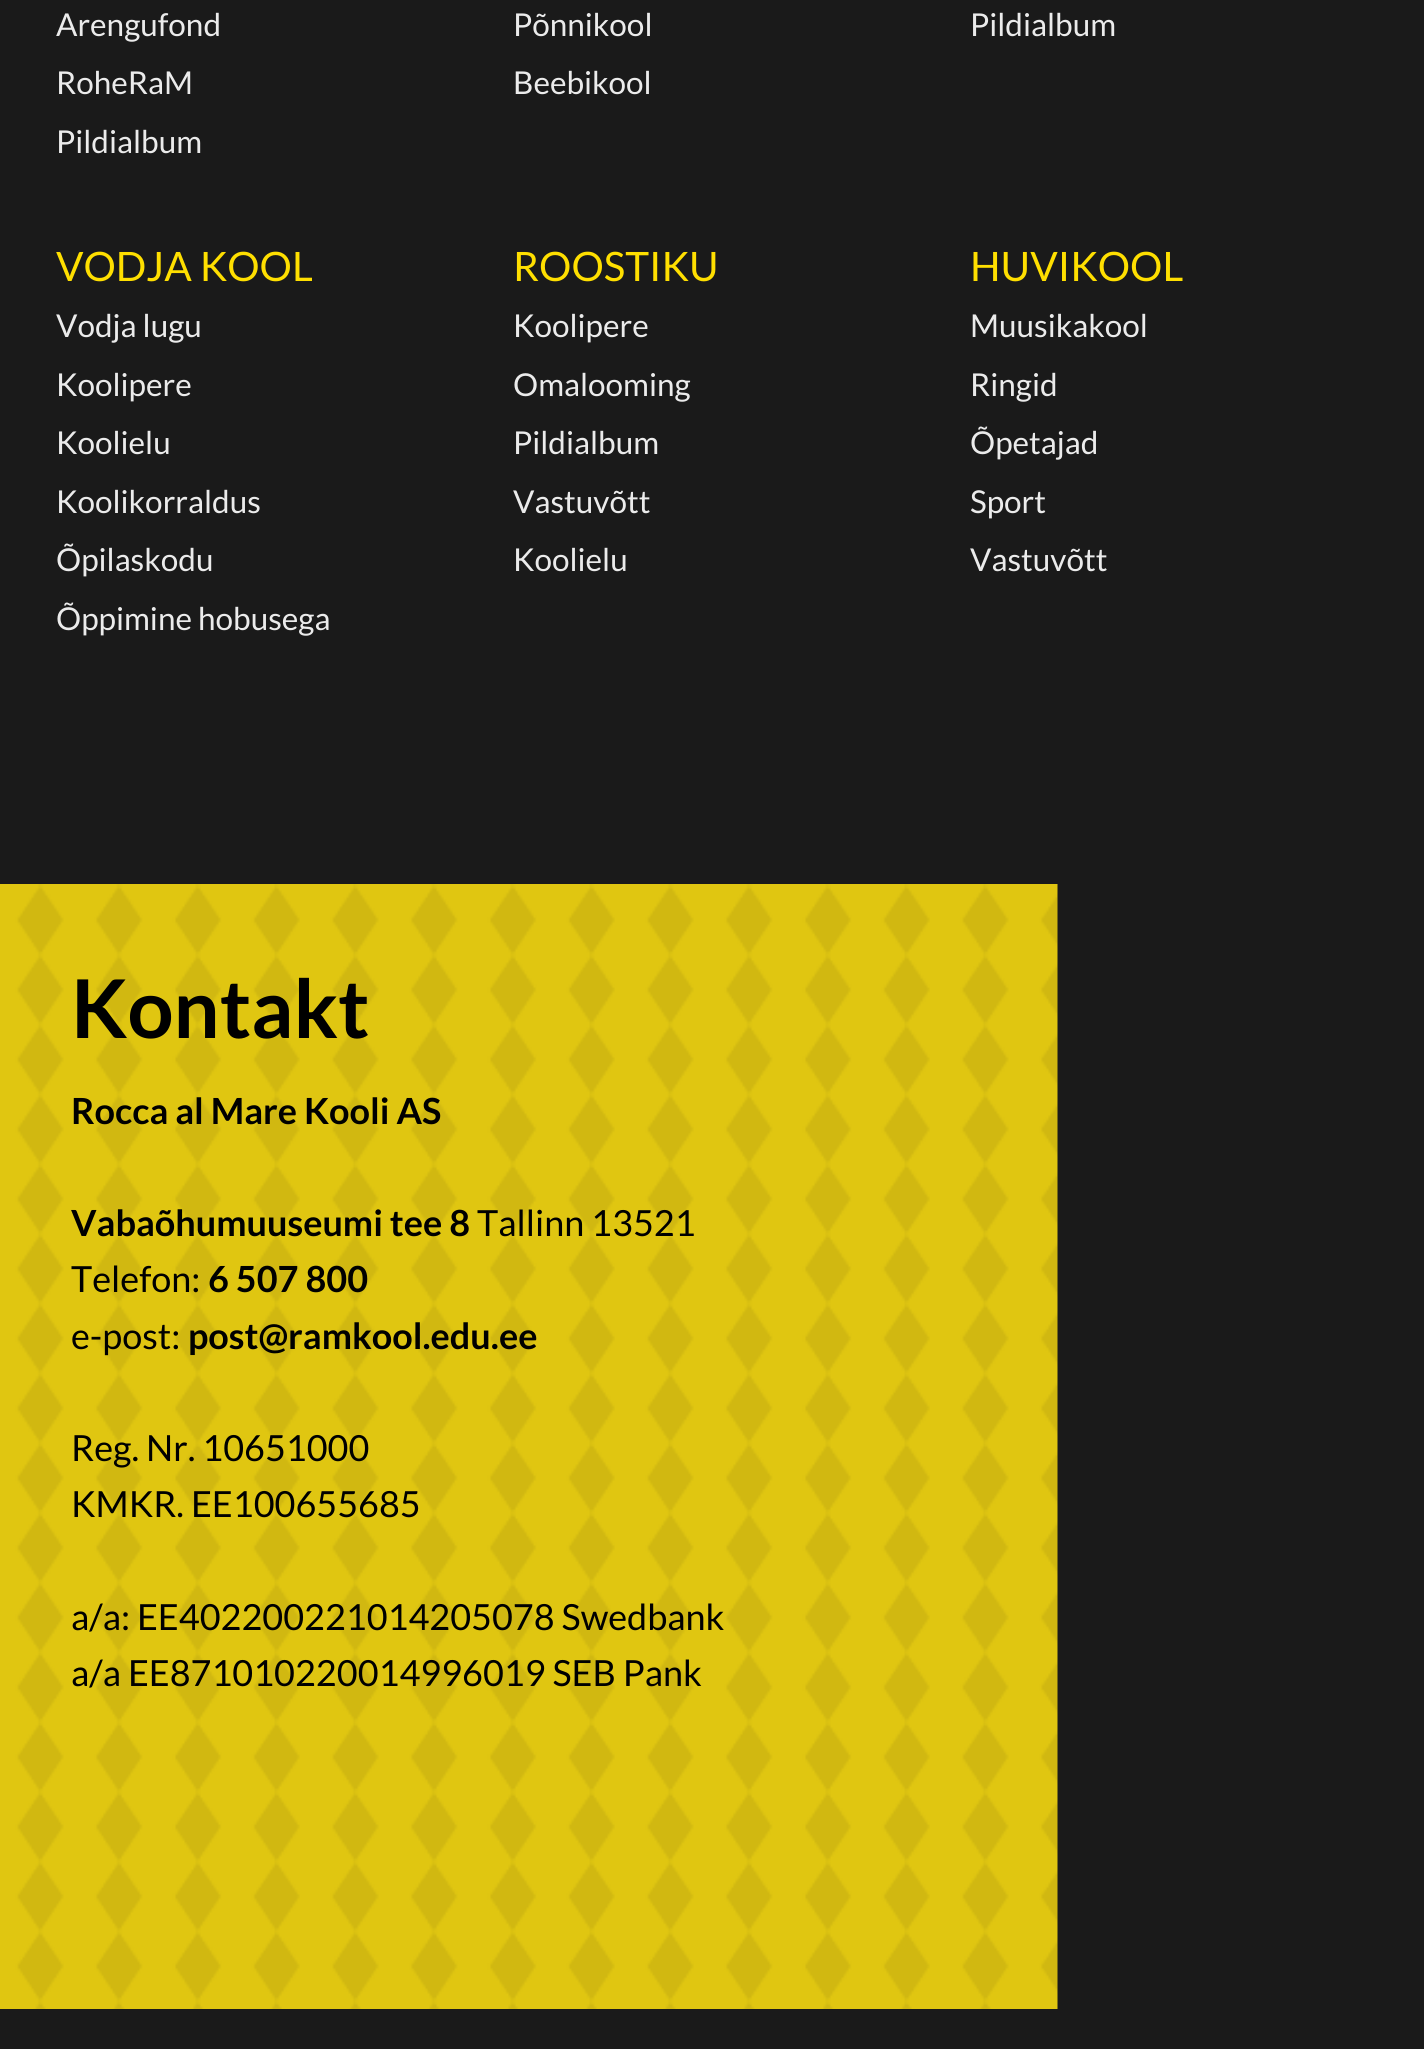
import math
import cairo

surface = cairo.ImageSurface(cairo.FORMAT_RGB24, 1424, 2049)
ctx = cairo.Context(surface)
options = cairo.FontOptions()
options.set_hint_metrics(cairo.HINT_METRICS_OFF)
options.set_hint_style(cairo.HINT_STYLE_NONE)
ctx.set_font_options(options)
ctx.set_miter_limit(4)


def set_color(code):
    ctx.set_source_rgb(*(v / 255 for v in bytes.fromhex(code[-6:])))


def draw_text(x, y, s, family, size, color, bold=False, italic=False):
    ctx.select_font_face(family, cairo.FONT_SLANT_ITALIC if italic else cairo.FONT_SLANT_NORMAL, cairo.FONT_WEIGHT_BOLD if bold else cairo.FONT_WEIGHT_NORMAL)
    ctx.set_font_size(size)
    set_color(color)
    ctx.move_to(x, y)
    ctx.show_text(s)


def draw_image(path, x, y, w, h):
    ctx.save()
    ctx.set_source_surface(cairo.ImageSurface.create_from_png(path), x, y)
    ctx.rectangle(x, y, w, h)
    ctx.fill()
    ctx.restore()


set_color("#1a1a1a")
ctx.paint()
draw_text(56, 36, "Arengufond", "Lato", 31.5, "#ebebeb")
draw_text(56, 94, "RoheRaM", "Lato", 31.5, "#ebebeb")
draw_text(56, 153, "Pildialbum", "Lato", 31.5, "#ebebeb")
draw_text(513, 36, "Põnnikool", "Lato", 31.5, "#ebebeb")
draw_text(513, 94, "Beebikool", "Lato", 31.5, "#ebebeb")
draw_text(970, 36, "Pildialbum", "Lato", 31.5, "#ebebeb")
draw_text(56, 281, "VODJA KOOL", "Lato", 40.5, "#ffdf00")
draw_text(56, 337, "Vodja lugu", "Lato", 31.5, "#ebebeb")
draw_text(56, 396, "Koolipere", "Lato", 31.5, "#ebebeb")
draw_text(56, 454, "Koolielu", "Lato", 31.5, "#ebebeb")
draw_text(56, 513, "Koolikorraldus", "Lato", 31.5, "#ebebeb")
draw_text(56, 571, "Õpilaskodu", "Lato", 31.5, "#ebebeb")
draw_text(56, 630, "Õppimine hobusega", "Lato", 31.5, "#ebebeb")
draw_text(513, 281, "ROOSTIKU", "Lato", 40.5, "#ffdf00")
draw_text(513, 337, "Koolipere", "Lato", 31.5, "#ebebeb")
draw_text(513, 396, "Omalooming", "Lato", 31.5, "#ebebeb")
draw_text(513, 454, "Pildialbum", "Lato", 31.5, "#ebebeb")
draw_text(513, 513, "Vastuvõtt", "Lato", 31.5, "#ebebeb")
draw_text(513, 571, "Koolielu", "Lato", 31.5, "#ebebeb")
draw_text(970, 281, "HUVIKOOL", "Lato", 40.5, "#ffdf00")
draw_text(970, 337, "Muusikakool", "Lato", 31.5, "#ebebeb")
draw_text(970, 396, "Ringid", "Lato", 31.5, "#ebebeb")
draw_text(970, 454, "Õpetajad", "Lato", 31.5, "#ebebeb")
draw_text(970, 513, "Sport", "Lato", 31.5, "#ebebeb")
draw_text(970, 571, "Vastuvõtt", "Lato", 31.5, "#ebebeb")
draw_image("assets/img1.png", 0, 884, 1058, 1125)
draw_text(71, 1038, "Kontakt", "Lato", 81, "#000000", bold=True)
draw_text(71, 1124, "Rocca al Mare Kooli AS", "Lato", 36, "#000000", bold=True)
draw_text(71, 1236, "Vabaõhumuuseumi tee 8", "Lato", 36, "#000000", bold=True)
draw_text(477, 1236, "Tallinn 13521", "Lato", 36, "#000000")
draw_text(71, 1292, "Telefon:", "Lato", 36, "#000000")
draw_text(208, 1292, "6 507 800", "Lato", 36, "#000000", bold=True)
draw_text(71, 1349, "e-post:", "Lato", 36, "#000000")
draw_text(188, 1349, "post@ramkool.edu.ee", "Lato", 36, "#000000", bold=True)
draw_text(71, 1461, "Reg. Nr. 10651000", "Lato", 36, "#000000")
draw_text(71, 1517, "KMKR. EE100655685", "Lato", 36, "#000000")
draw_text(71, 1630, "a/a: EE402200221014205078 Swedbank", "Lato", 36, "#000000")
draw_text(71, 1686, "a/a EE871010220014996019 SEB Pank", "Lato", 36, "#000000")
surface.write_to_png("output.png")
